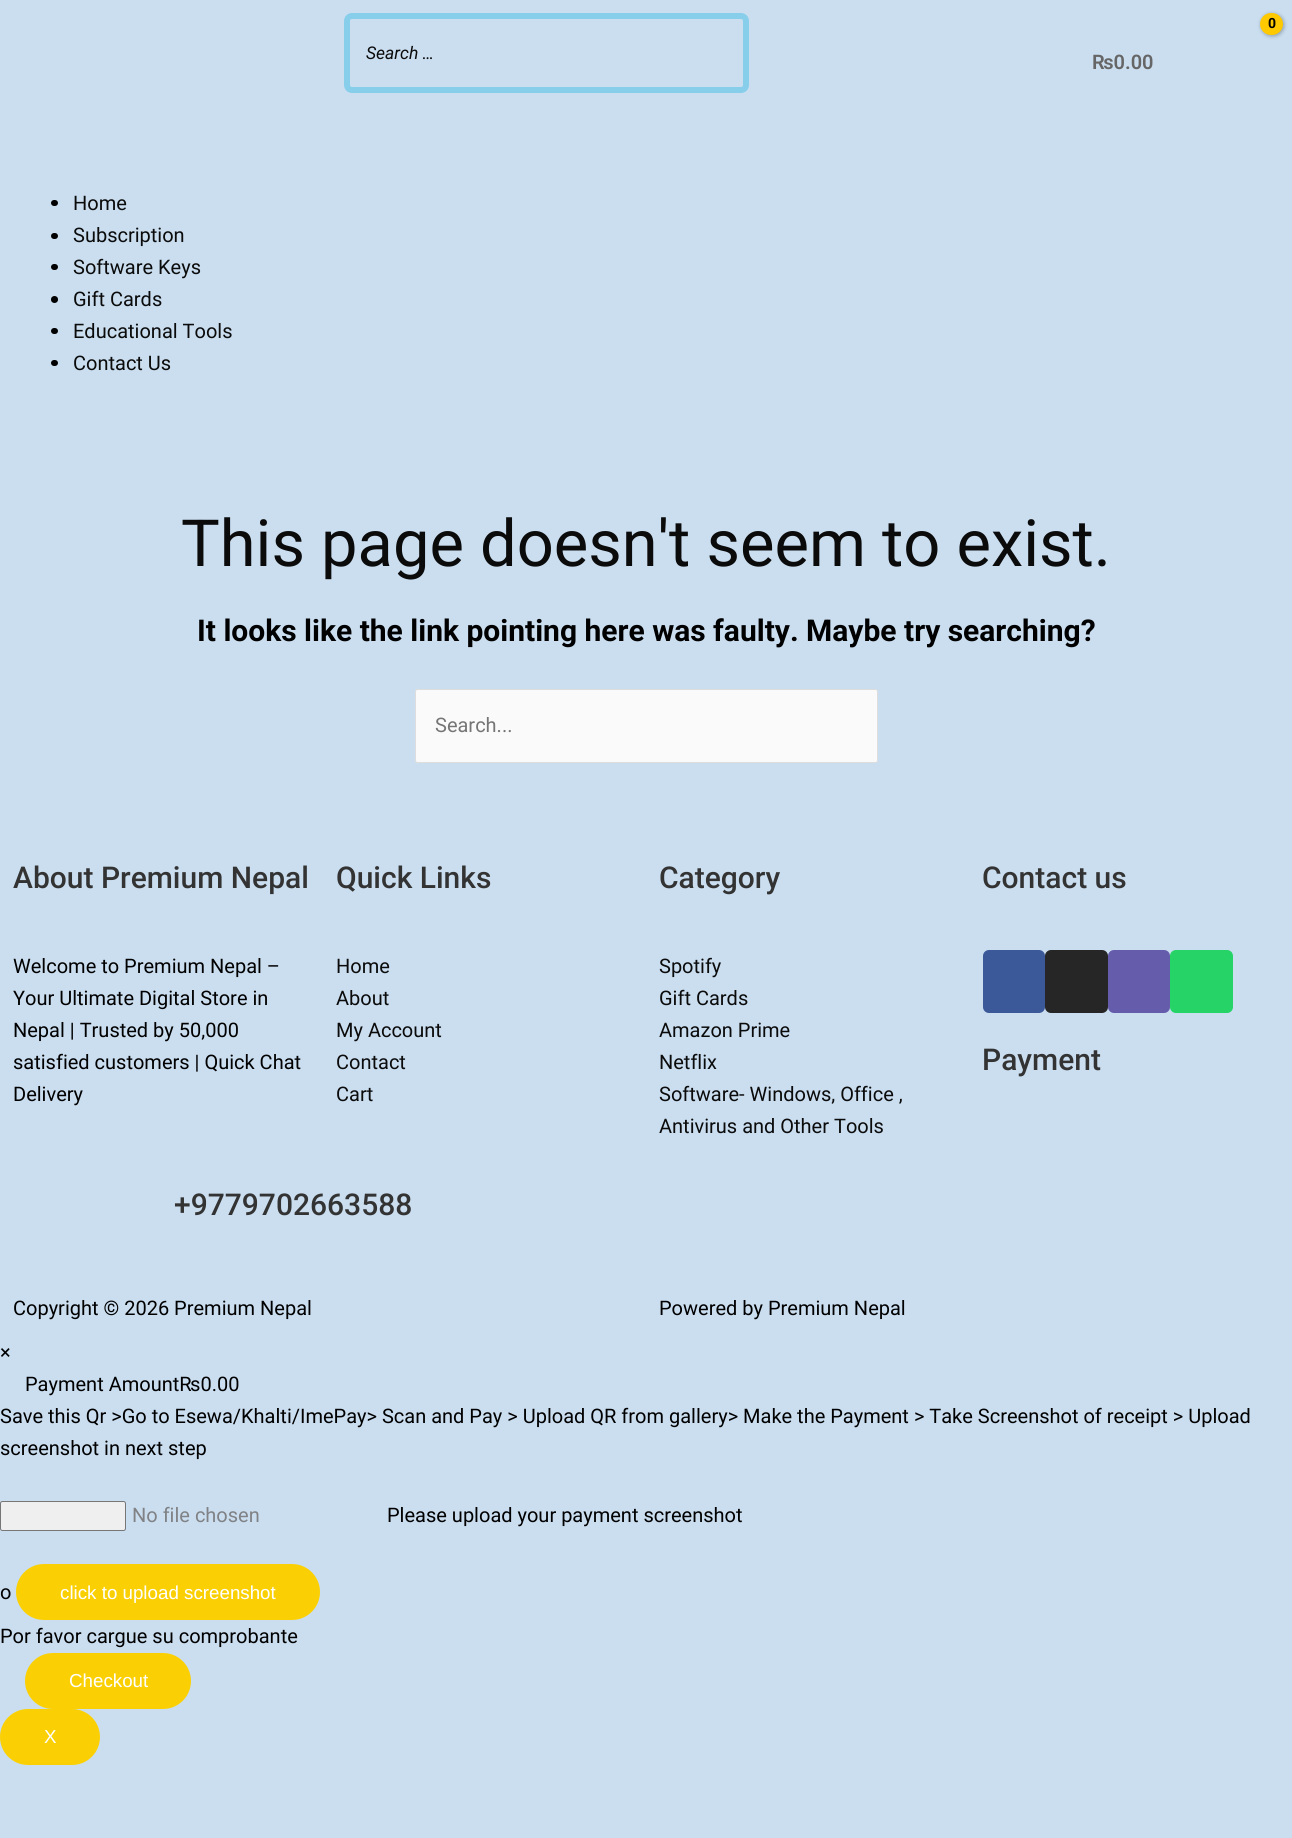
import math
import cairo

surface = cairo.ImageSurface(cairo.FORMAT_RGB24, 1292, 1838)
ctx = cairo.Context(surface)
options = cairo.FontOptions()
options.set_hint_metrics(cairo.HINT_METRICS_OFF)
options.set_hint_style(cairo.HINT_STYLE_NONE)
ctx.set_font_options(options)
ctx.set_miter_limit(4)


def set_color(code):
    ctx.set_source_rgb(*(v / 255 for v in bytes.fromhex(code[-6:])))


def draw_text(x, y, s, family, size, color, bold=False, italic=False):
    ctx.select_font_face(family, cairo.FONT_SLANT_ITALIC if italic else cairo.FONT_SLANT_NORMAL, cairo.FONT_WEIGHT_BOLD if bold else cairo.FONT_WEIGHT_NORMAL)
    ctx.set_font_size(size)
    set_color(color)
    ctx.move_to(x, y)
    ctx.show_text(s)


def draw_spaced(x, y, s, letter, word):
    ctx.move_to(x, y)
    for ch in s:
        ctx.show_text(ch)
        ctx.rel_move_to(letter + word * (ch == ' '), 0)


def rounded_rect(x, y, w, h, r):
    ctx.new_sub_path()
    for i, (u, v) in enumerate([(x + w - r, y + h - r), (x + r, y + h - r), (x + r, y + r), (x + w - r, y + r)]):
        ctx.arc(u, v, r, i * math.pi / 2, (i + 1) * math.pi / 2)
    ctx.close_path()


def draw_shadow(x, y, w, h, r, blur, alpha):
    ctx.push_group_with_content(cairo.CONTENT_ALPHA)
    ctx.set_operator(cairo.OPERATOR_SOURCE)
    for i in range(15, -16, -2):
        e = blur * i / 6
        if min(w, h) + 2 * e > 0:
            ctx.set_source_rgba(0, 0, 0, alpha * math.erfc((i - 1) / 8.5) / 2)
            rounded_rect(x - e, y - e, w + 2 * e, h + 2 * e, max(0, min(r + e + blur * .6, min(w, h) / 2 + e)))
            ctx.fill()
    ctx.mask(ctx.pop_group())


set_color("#cadef0")
ctx.paint()
rounded_rect(347, 16, 399, 74, 5)
set_color("#87ceeb")
ctx.set_line_width(6)
ctx.stroke()
draw_text(366, 59, "Search …", "Roboto", 17.5, "#0b0b0b", italic=True)
set_color("#000000")
draw_shadow(1261, 14, 23, 22, 11, 2, 0.3)
set_color("#ffc900")
rounded_rect(1260, 13, 23, 22, 11)
ctx.fill()
ctx.select_font_face("Roboto", cairo.FONT_SLANT_NORMAL, cairo.FONT_WEIGHT_BOLD)
ctx.set_font_size(14)
set_color("#000000")
draw_spaced(1268, 28, "0", -1, 0)
draw_text(1092, 69, "₨0.00", "Roboto SemiBold", 20, "#666666")
set_color("#000000")
rounded_rect(51, 200, 7, 6, 3)
ctx.fill()
draw_text(73, 210, "Home", "Roboto", 20, "#0b0b0b")
set_color("#000000")
rounded_rect(51, 233, 7, 6, 3)
ctx.fill()
draw_text(73, 242, "Subscription", "Roboto", 20, "#0b0b0b")
set_color("#000000")
rounded_rect(51, 264, 7, 6, 3)
ctx.fill()
draw_text(73, 274, "Software Keys", "Roboto", 20, "#0b0b0b")
set_color("#000000")
ctx.new_path()
ctx.arc(54.5, 299.5, 3.5, 0, 2 * math.pi)
ctx.fill()
draw_text(73, 306, "Gift Cards", "Roboto", 20, "#0b0b0b")
set_color("#000000")
rounded_rect(51, 328, 7, 6, 3)
ctx.fill()
draw_text(73, 338, "Educational Tools", "Roboto", 20, "#0b0b0b")
set_color("#000000")
rounded_rect(51, 360, 7, 6, 3)
ctx.fill()
draw_text(73, 370, "Contact Us", "Roboto", 20, "#0b0b0b")
draw_text(181, 566, "This page doesn't seem to exist.", "Roboto", 65, "#0b0b0b")
draw_text(197, 641, "It looks like the link pointing here was faulty. Maybe try searching?", "Roboto", 30, "#000000", bold=True)
set_color("#fafafa")
rounded_rect(415.5, 689.5, 462, 73, 2)
ctx.fill_preserve()
set_color("#dddddd")
ctx.set_line_width(1)
ctx.stroke()
draw_text(435, 732, "Search...", "Roboto", 20, "#757575")
draw_text(13, 888, "About Premium Nepal", "Roboto Medium", 30, "#333333")
draw_text(13, 973, "Welcome to Premium Nepal –", "Roboto", 20, "#000000")
draw_text(13, 1005, "Your Ultimate Digital Store in", "Roboto", 20, "#000000")
draw_text(13, 1037, "Nepal | Trusted by 50,000", "Roboto", 20, "#000000")
draw_text(13, 1069, "satisfied customers | Quick Chat", "Roboto", 20, "#000000")
draw_text(13, 1101, "Delivery", "Roboto", 20, "#000000")
draw_text(174, 1215, "+9779702663588", "Roboto Medium", 30, "#333333")
draw_text(336, 888, "Quick Links", "Roboto Medium", 30, "#333333")
draw_text(336, 973, "Home", "Roboto", 20, "#0b0b0b")
draw_text(336, 1005, "About", "Roboto", 20, "#0b0b0b")
draw_text(336, 1037, "My Account", "Roboto", 20, "#0b0b0b")
draw_text(336, 1069, "Contact", "Roboto", 20, "#0b0b0b")
draw_text(336, 1101, "Cart", "Roboto", 20, "#0b0b0b")
draw_text(659, 888, "Category", "Roboto Medium", 30, "#333333")
draw_text(659, 973, "Spotify", "Roboto", 20, "#0b0b0b")
draw_text(659, 1005, "Gift Cards", "Roboto", 20, "#0b0b0b")
draw_text(659, 1037, "Amazon Prime", "Roboto", 20, "#0b0b0b")
draw_text(659, 1069, "Netflix", "Roboto", 20, "#0b0b0b")
draw_text(659, 1101, "Software- Windows, Office ,", "Roboto", 20, "#0b0b0b")
draw_text(659, 1133, "Antivirus and Other Tools", "Roboto", 20, "#0b0b0b")
draw_text(982, 888, "Contact us", "Roboto Medium", 30, "#333333")
set_color("#3b5998")
rounded_rect(983, 950, 62, 63, 6)
ctx.fill()
set_color("#262626")
rounded_rect(1045, 950, 63, 63, 6)
ctx.fill()
set_color("#665cac")
rounded_rect(1108, 950, 62, 63, 6)
ctx.fill()
set_color("#25d366")
rounded_rect(1170, 950, 63, 63, 6)
ctx.fill()
draw_text(982, 1070, "Payment", "Roboto Medium", 30, "#333333")
draw_text(13, 1315, "Copyright © 2026 Premium Nepal", "Roboto", 20, "#000000")
draw_text(659, 1315, "Powered by Premium Nepal", "Roboto", 20, "#000000")
draw_text(0, 1359, "×", "Roboto", 20, "#000000")
draw_text(25, 1391, "Payment Amount₨0.00", "Roboto", 20, "#000000")
draw_text(0, 1423, "Save this Qr >Go to Esewa/Khalti/ImePay> Scan and Pay > Upload QR from gallery> Make the Payment > Take Screenshot of receipt > Upload", "Roboto", 20, "#000000")
draw_text(0, 1455, "screenshot in next step", "Roboto", 20, "#000000")
set_color("#efefef")
rounded_rect(0.5, 1501.5, 125, 29, 2)
ctx.fill_preserve()
set_color("#767676")
ctx.stroke()
draw_text(132, 1522, "No file chosen", "Roboto", 20, "#808285")
draw_text(387, 1522, "Please upload your payment screenshot", "Roboto", 20, "#000000")
draw_text(0, 1599, "o", "Roboto", 20, "#000000")
set_color("#fad005")
rounded_rect(16, 1564, 304, 56, 28)
ctx.fill()
draw_text(60, 1599, "click to upload screenshot", "Liberation Sans", 18.75, "#ffffff")
draw_text(0, 1643, "Por favor cargue su comprobante", "Roboto", 20, "#000000")
set_color("#fad005")
rounded_rect(25, 1653, 166, 56, 28)
ctx.fill()
draw_text(69, 1687, "Checkout", "Liberation Sans", 18.75, "#ffffff")
set_color("#fad005")
rounded_rect(0, 1709, 100, 56, 28)
ctx.fill()
draw_text(44, 1743, "X", "Liberation Sans", 18.75, "#ffffff")
surface.write_to_png("output.png")
